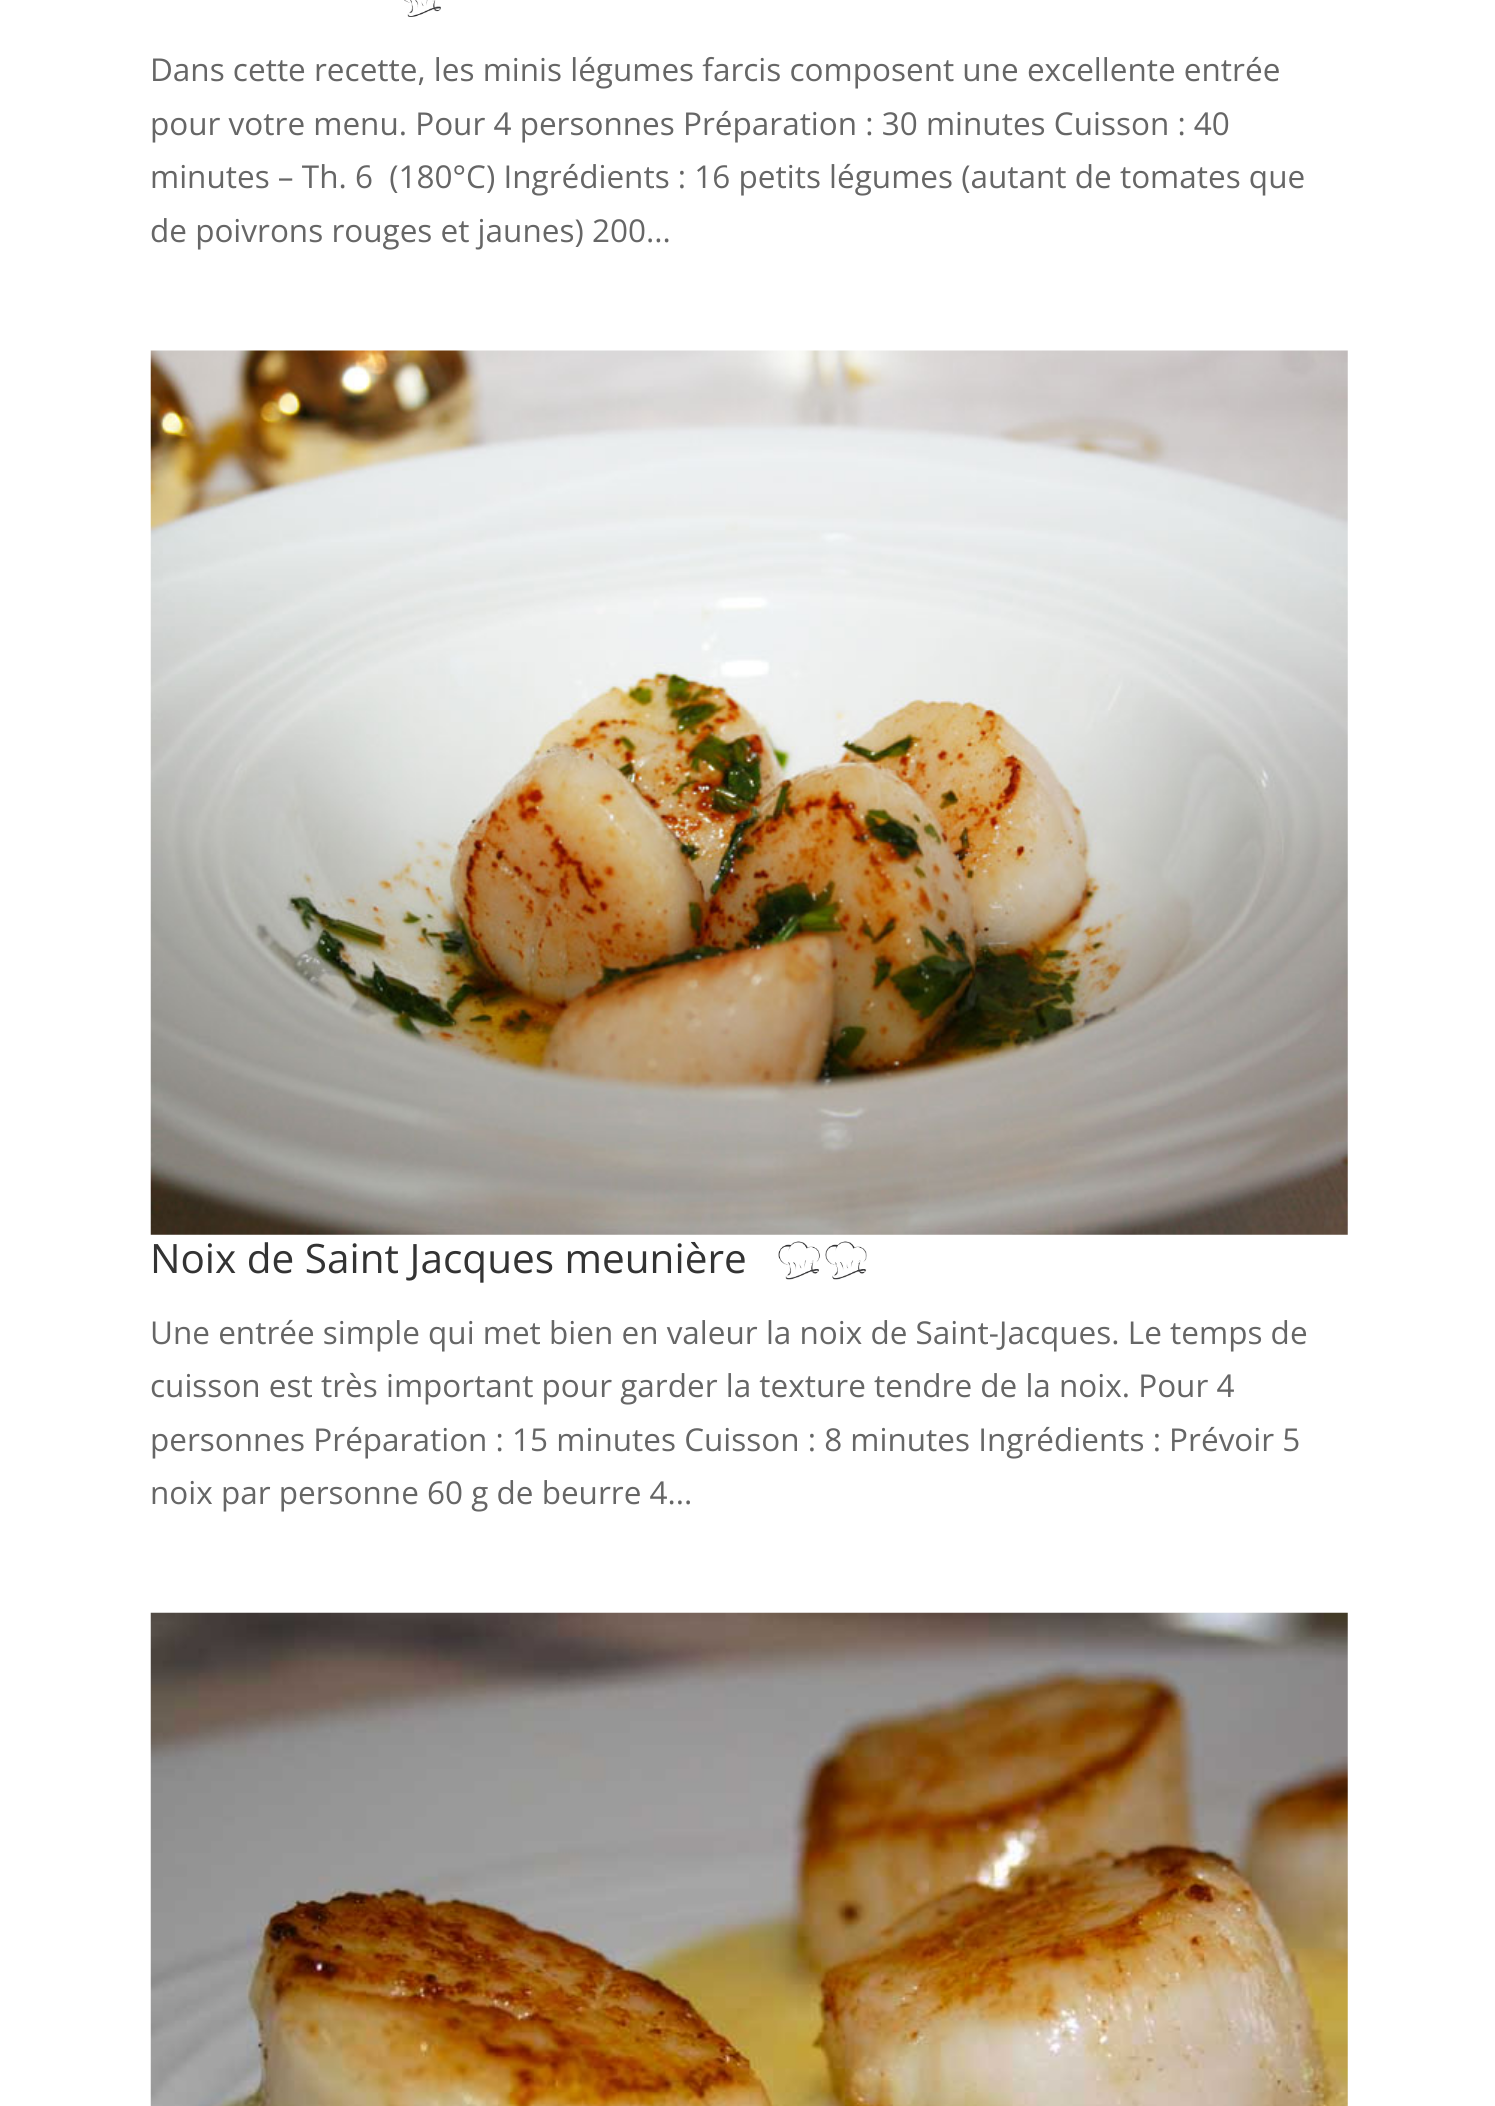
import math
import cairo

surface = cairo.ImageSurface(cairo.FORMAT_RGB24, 1495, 2106)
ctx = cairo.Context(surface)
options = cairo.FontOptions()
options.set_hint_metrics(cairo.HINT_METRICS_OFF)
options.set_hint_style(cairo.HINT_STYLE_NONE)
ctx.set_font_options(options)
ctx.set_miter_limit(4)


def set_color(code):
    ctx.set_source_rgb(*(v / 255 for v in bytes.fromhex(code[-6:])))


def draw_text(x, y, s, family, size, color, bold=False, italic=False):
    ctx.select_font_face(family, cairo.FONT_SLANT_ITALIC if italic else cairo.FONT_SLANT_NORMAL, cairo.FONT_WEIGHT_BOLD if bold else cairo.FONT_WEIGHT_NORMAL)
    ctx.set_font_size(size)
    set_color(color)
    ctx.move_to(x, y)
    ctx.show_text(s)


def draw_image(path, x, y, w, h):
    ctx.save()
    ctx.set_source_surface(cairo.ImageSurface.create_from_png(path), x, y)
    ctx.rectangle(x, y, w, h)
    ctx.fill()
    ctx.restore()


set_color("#ffffff")
ctx.paint()
draw_image("assets/img1.png", 404, 0, 37, 17)
draw_text(150, 81, "Dans cette recette, les minis légumes farcis composent une excellente entrée", "Open Sans", 31.5, "#666666")
draw_text(150, 135, "pour votre menu. Pour 4 personnes Préparation : 30 minutes Cuisson : 40", "Open Sans", 31.5, "#666666")
draw_text(150, 188, "minutes – Th. 6  (180°C) Ingrédients : 16 petits légumes (autant de tomates que", "Open Sans", 31.5, "#666666")
draw_text(150, 242, "de poivrons rouges et jaunes) 200...", "Open Sans", 31.5, "#666666")
draw_image("assets/img2.png", 150, 350, 1198, 885)
draw_text(150, 1273, "Noix de Saint Jacques meunière", "Open Sans", 40.5, "#333333")
draw_image("assets/img3.png", 778, 1241, 89, 39)
draw_text(150, 1344, "Une entrée simple qui met bien en valeur la noix de Saint-Jacques. Le temps de", "Open Sans", 31.5, "#666666")
draw_text(150, 1397, "cuisson est très important pour garder la texture tendre de la noix. Pour 4", "Open Sans", 31.5, "#666666")
draw_text(150, 1451, "personnes Préparation : 15 minutes Cuisson : 8 minutes Ingrédients : Prévoir 5", "Open Sans", 31.5, "#666666")
draw_text(150, 1504, "noix par personne 60 g de beurre 4...", "Open Sans", 31.5, "#666666")
draw_image("assets/img4.png", 150, 1612, 1198, 494)
surface.write_to_png("output.png")
